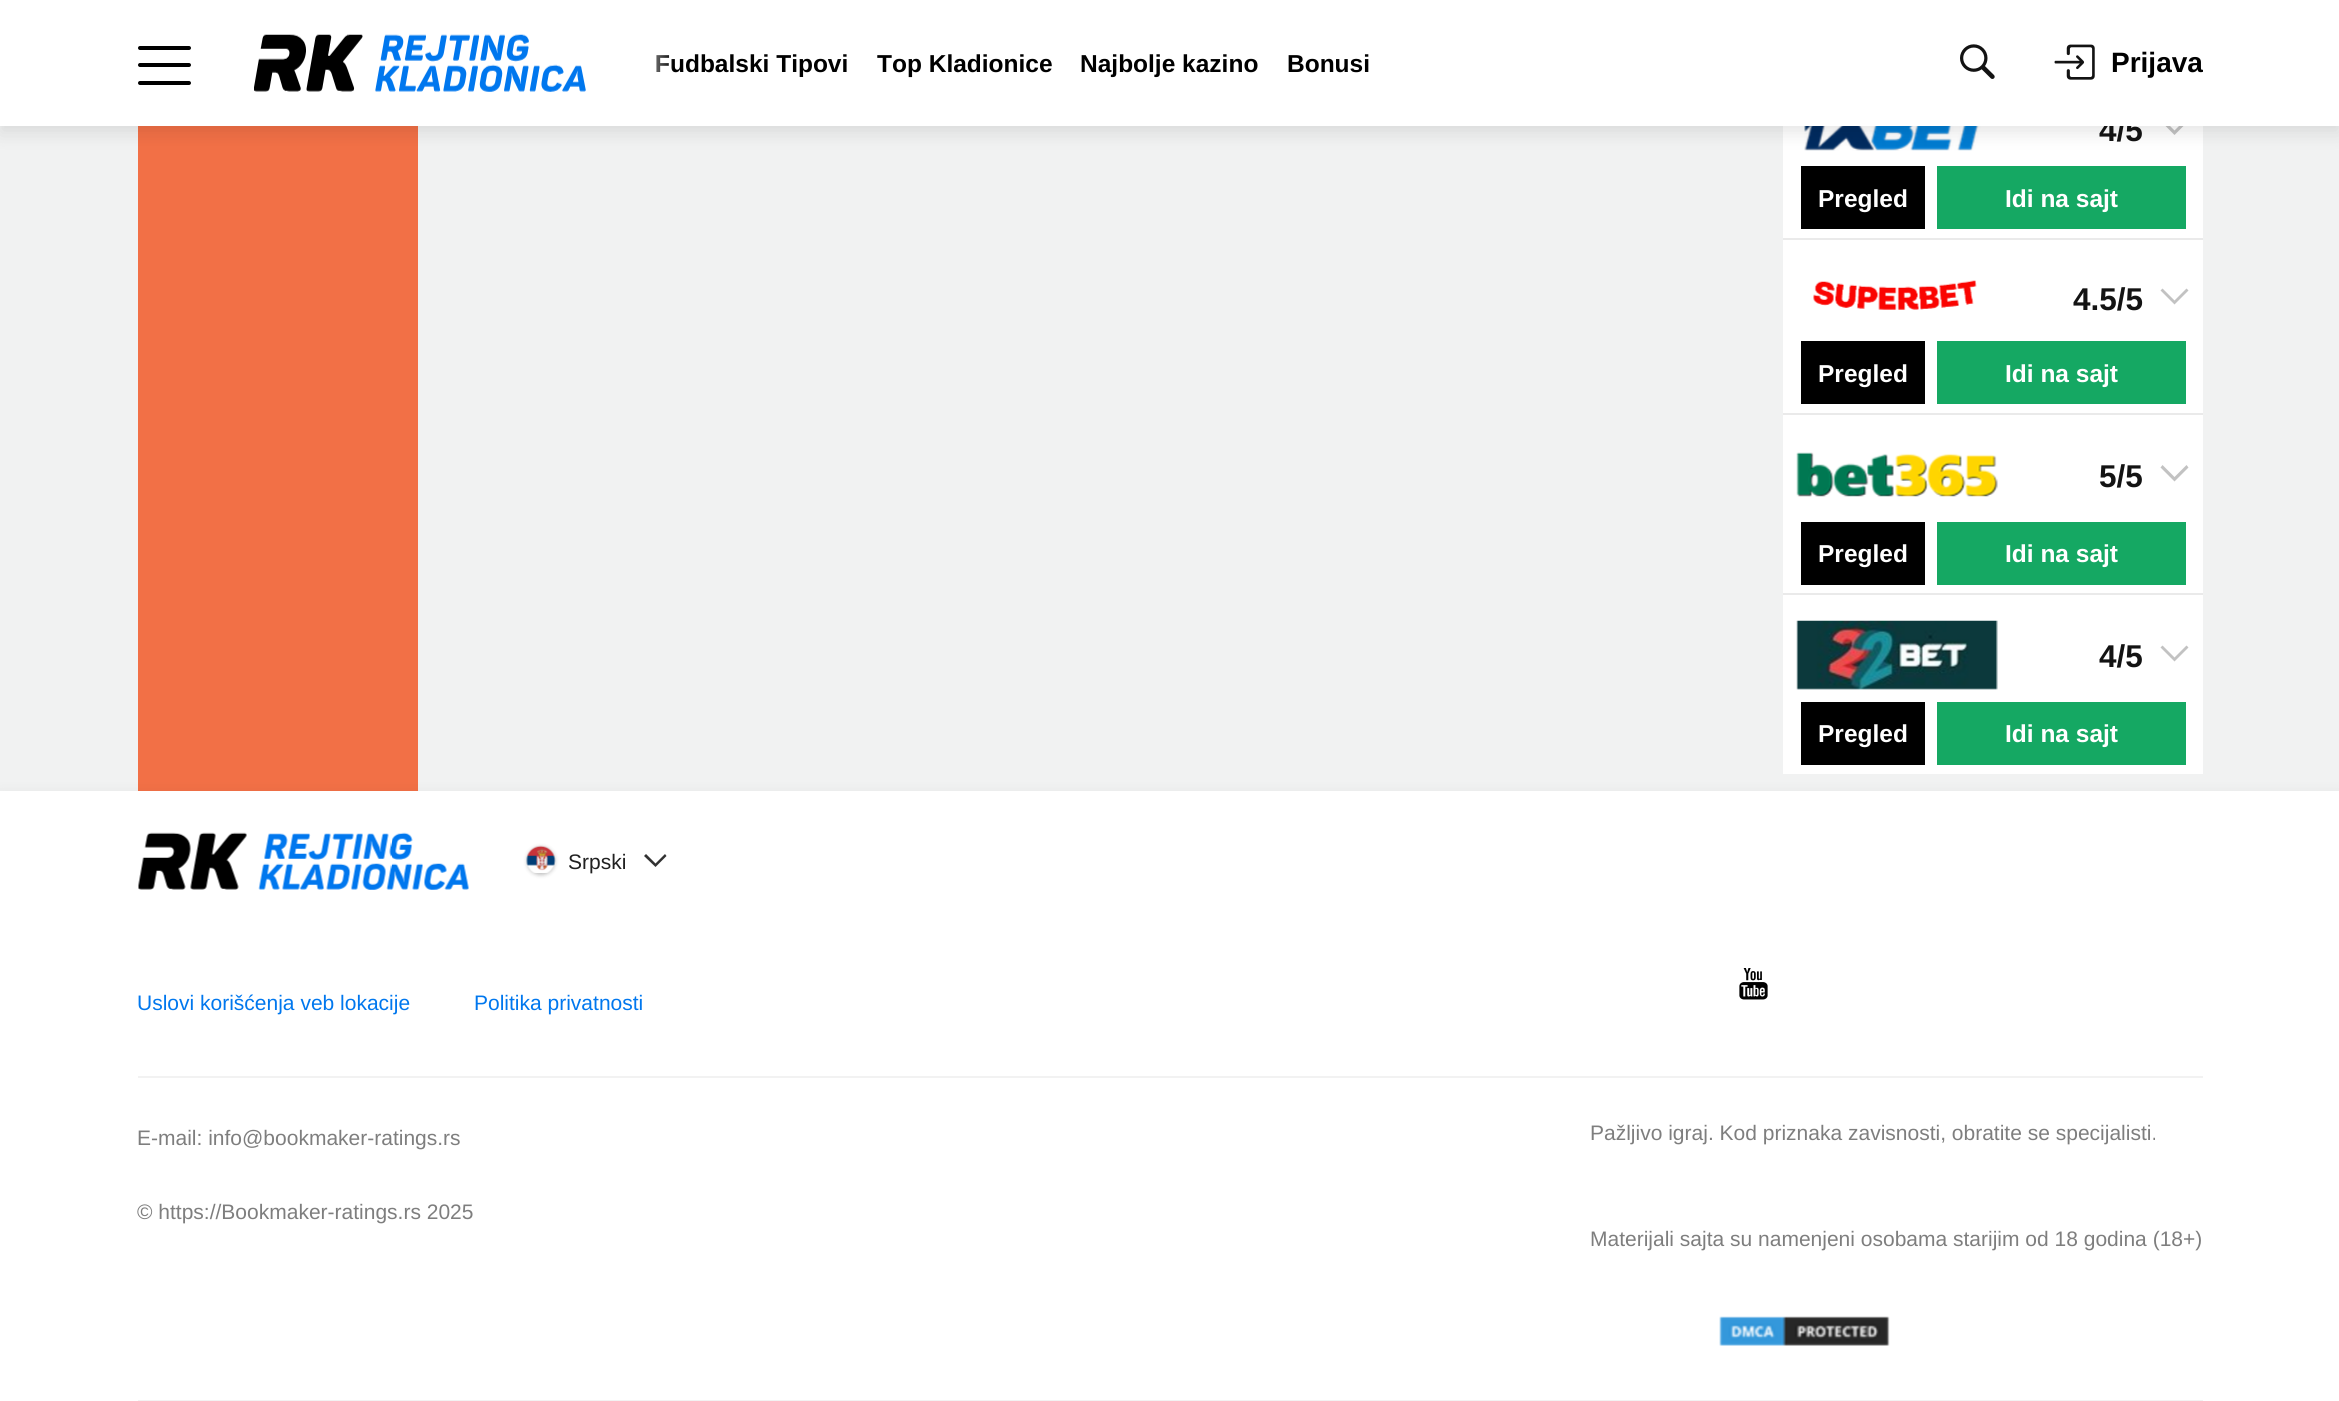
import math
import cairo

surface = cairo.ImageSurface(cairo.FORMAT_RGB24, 2339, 1401)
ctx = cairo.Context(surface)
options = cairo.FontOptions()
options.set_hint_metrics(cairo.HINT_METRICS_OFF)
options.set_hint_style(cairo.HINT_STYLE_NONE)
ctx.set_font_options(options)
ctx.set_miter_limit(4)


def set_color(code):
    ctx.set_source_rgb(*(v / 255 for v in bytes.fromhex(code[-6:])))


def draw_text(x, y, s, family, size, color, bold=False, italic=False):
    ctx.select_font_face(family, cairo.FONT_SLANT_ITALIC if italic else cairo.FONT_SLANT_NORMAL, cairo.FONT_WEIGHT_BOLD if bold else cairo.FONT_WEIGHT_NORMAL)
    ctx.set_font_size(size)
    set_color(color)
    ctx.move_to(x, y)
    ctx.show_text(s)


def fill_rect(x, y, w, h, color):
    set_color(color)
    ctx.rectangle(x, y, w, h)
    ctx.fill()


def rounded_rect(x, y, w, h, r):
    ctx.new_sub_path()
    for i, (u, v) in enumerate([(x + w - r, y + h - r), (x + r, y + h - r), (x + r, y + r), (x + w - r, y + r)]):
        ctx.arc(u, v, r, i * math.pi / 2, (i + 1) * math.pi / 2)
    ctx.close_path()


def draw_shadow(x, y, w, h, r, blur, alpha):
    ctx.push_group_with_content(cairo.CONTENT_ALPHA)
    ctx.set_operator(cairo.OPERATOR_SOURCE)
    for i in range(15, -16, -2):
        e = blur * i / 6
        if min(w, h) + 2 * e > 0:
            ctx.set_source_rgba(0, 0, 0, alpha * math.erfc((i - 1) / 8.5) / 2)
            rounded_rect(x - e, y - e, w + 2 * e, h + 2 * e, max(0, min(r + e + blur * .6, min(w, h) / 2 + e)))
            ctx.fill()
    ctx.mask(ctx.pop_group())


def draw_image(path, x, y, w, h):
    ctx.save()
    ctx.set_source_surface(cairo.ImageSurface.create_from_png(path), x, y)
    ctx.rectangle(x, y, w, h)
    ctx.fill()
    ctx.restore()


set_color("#f1f2f2")
ctx.paint()
fill_rect(138, 126, 280, 665, "#f27046")
fill_rect(1783, 126, 420, 648, "#ffffff")
draw_image("assets/img4.png", 1804, 126, 191, 25)
set_color("#c2c2c2")
ctx.new_path()
ctx.move_to(2186.5, 118.5)
ctx.line_to(2174.5, 130.5)
ctx.line_to(2162.5, 118.5)
ctx.line_to(2160.5, 121)
ctx.line_to(2174.5, 135)
ctx.line_to(2188.5, 121)
ctx.close_path()
ctx.fill()
set_color("#000000")
draw_shadow(0, 7, 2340, 126, 0, 9, 0.1)
draw_text(2099, 141, "4/5", "Liberation Sans", 31.5, "#131313", bold=True)
fill_rect(0, 0, 2339, 126, "#ffffff")
set_color("#000000")
rounded_rect(138, 81, 53, 4, 2)
ctx.fill()
rounded_rect(138, 46, 53, 4, 2)
ctx.fill()
rounded_rect(138, 63, 53, 4, 2)
ctx.fill()
draw_image("assets/img1.png", 254, 34, 332, 58)
ctx.save()
ctx.rectangle(628, 49, 1273, 28)
ctx.clip()
draw_text(655, 72, "Fudbalski Tipovi", "Liberation Sans", 24.5, "#000000", bold=True)
ctx.restore()
draw_text(877, 72, "Top Kladionice", "Liberation Sans", 24.5, "#000000", bold=True)
draw_text(1080, 72, "Najbolje kazino", "Liberation Sans", 24.5, "#000000", bold=True)
draw_text(1287, 72, "Bonusi", "Liberation Sans", 24.5, "#000000", bold=True)
gradient = cairo.LinearGradient(628, 63, 698, 63)
gradient.add_color_stop_rgba(0, 1, 1, 1, 1)
gradient.add_color_stop_rgba(0.66, 1, 1, 1, 0)
ctx.set_source(gradient)
ctx.rectangle(657, 55, 16, 17)
ctx.fill()
draw_image("assets/img2.png", 1960, 44, 35, 35)
draw_image("assets/img3.png", 2054, 44, 41, 36)
draw_text(2111, 72, "Prijava", "Liberation Sans", 28, "#000000", bold=True)
fill_rect(1783, 238, 420, 2, "#eaeaea")
fill_rect(1801, 166, 124, 63, "#000000")
draw_text(1818, 207, "Pregled", "Liberation Sans", 24.5, "#ffffff", bold=True)
fill_rect(1937, 166, 249, 63, "#15a863")
draw_text(2005, 207, "Idi na sajt", "Liberation Sans", 24.5, "#ffffff", bold=True)
draw_image("assets/img5.png", 1813, 280, 164, 30)
draw_text(2073, 310, "4.5/5", "Liberation Sans", 31.5, "#131313", bold=True)
set_color("#c2c2c2")
ctx.new_path()
ctx.move_to(2186.5, 288.5)
ctx.line_to(2174.5, 300.5)
ctx.line_to(2162.5, 288.5)
ctx.line_to(2160.5, 290.5)
ctx.line_to(2174.5, 304.5)
ctx.line_to(2188.5, 290.5)
ctx.close_path()
ctx.fill()
fill_rect(1783, 413, 420, 2, "#eaeaea")
fill_rect(1801, 341, 124, 63, "#000000")
draw_text(1818, 382, "Pregled", "Liberation Sans", 24.5, "#ffffff", bold=True)
fill_rect(1937, 341, 249, 63, "#15a863")
draw_text(2005, 382, "Idi na sajt", "Liberation Sans", 24.5, "#ffffff", bold=True)
draw_image("assets/img6.png", 1796, 452, 202, 45)
draw_text(2099, 487, "5/5", "Liberation Sans", 31.5, "#131313", bold=True)
set_color("#c2c2c2")
ctx.new_path()
ctx.move_to(2186.5, 465)
ctx.line_to(2174.5, 477)
ctx.line_to(2162.5, 465)
ctx.line_to(2160.5, 467.5)
ctx.line_to(2174.5, 481.5)
ctx.line_to(2188.5, 467.5)
ctx.close_path()
ctx.fill()
fill_rect(1783, 593, 420, 2, "#eaeaea")
fill_rect(1801, 522, 124, 63, "#000000")
draw_text(1818, 562, "Pregled", "Liberation Sans", 24.5, "#ffffff", bold=True)
fill_rect(1937, 522, 249, 63, "#15a863")
draw_text(2005, 562, "Idi na sajt", "Liberation Sans", 24.5, "#ffffff", bold=True)
draw_image("assets/img7.png", 1796, 620, 202, 70)
draw_text(2099, 667, "4/5", "Liberation Sans", 31.5, "#131313", bold=True)
set_color("#c2c2c2")
ctx.new_path()
ctx.move_to(2186.5, 645.5)
ctx.line_to(2174.5, 657.5)
ctx.line_to(2162.5, 645.5)
ctx.line_to(2160.5, 647.5)
ctx.line_to(2174.5, 661.5)
ctx.line_to(2188.5, 647.5)
ctx.close_path()
ctx.fill()
fill_rect(1801, 702, 124, 63, "#000000")
draw_text(1818, 742, "Pregled", "Liberation Sans", 24.5, "#ffffff", bold=True)
fill_rect(1937, 702, 249, 63, "#15a863")
draw_text(2005, 742, "Idi na sajt", "Liberation Sans", 24.5, "#ffffff", bold=True)
set_color("#000000")
draw_shadow(0, 798, 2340, 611, 0, 9, 0.1)
fill_rect(0, 791, 2339, 610, "#ffffff")
draw_image("assets/img8.png", 138, 832, 331, 58)
set_color("#000000")
draw_shadow(527, 847, 28, 28, 14, 2, 0.25)
draw_image("assets/img9.png", 526, 845, 30, 28)
draw_text(568, 869, "Srpski", "Liberation Sans", 21, "#212121")
set_color("#323232")
ctx.new_path()
ctx.move_to(665, 854)
ctx.line_to(655.5, 863.5)
ctx.line_to(646, 854)
ctx.line_to(644, 856)
ctx.line_to(655.5, 867)
ctx.line_to(666.5, 856)
ctx.close_path()
ctx.fill()
draw_image("assets/img10.png", 1739, 968, 29, 32)
draw_text(137, 1010, "Uslovi korišćenja veb lokacije", "Liberation Sans", 21, "#0077ee")
draw_text(474, 1010, "Politika privatnosti", "Liberation Sans", 21, "#0077ee")
fill_rect(138, 1076, 2065, 2, "#f2f2f2")
fill_rect(138, 1400, 2065, 1, "#f2f2f2")
draw_text(137, 1145, "E-mail: info@bookmaker-ratings.rs", "Liberation Sans", 21, "#7e7e7e")
draw_text(137, 1219, "© https://Bookmaker-ratings.rs 2025", "Liberation Sans", 21, "#7e7e7e")
draw_text(1590, 1140, "Pažljivo igraj. Kod priznaka zavisnosti, obratite se specijalisti.", "Liberation Sans", 21, "#7e7e7e")
draw_text(1590, 1246, "Materijali sajta su namenjeni osobama starijim od 18 godina (18+)", "Liberation Sans", 21, "#7e7e7e")
draw_image("assets/img11.png", 1719, 1316, 171, 30)
surface.write_to_png("output.png")
